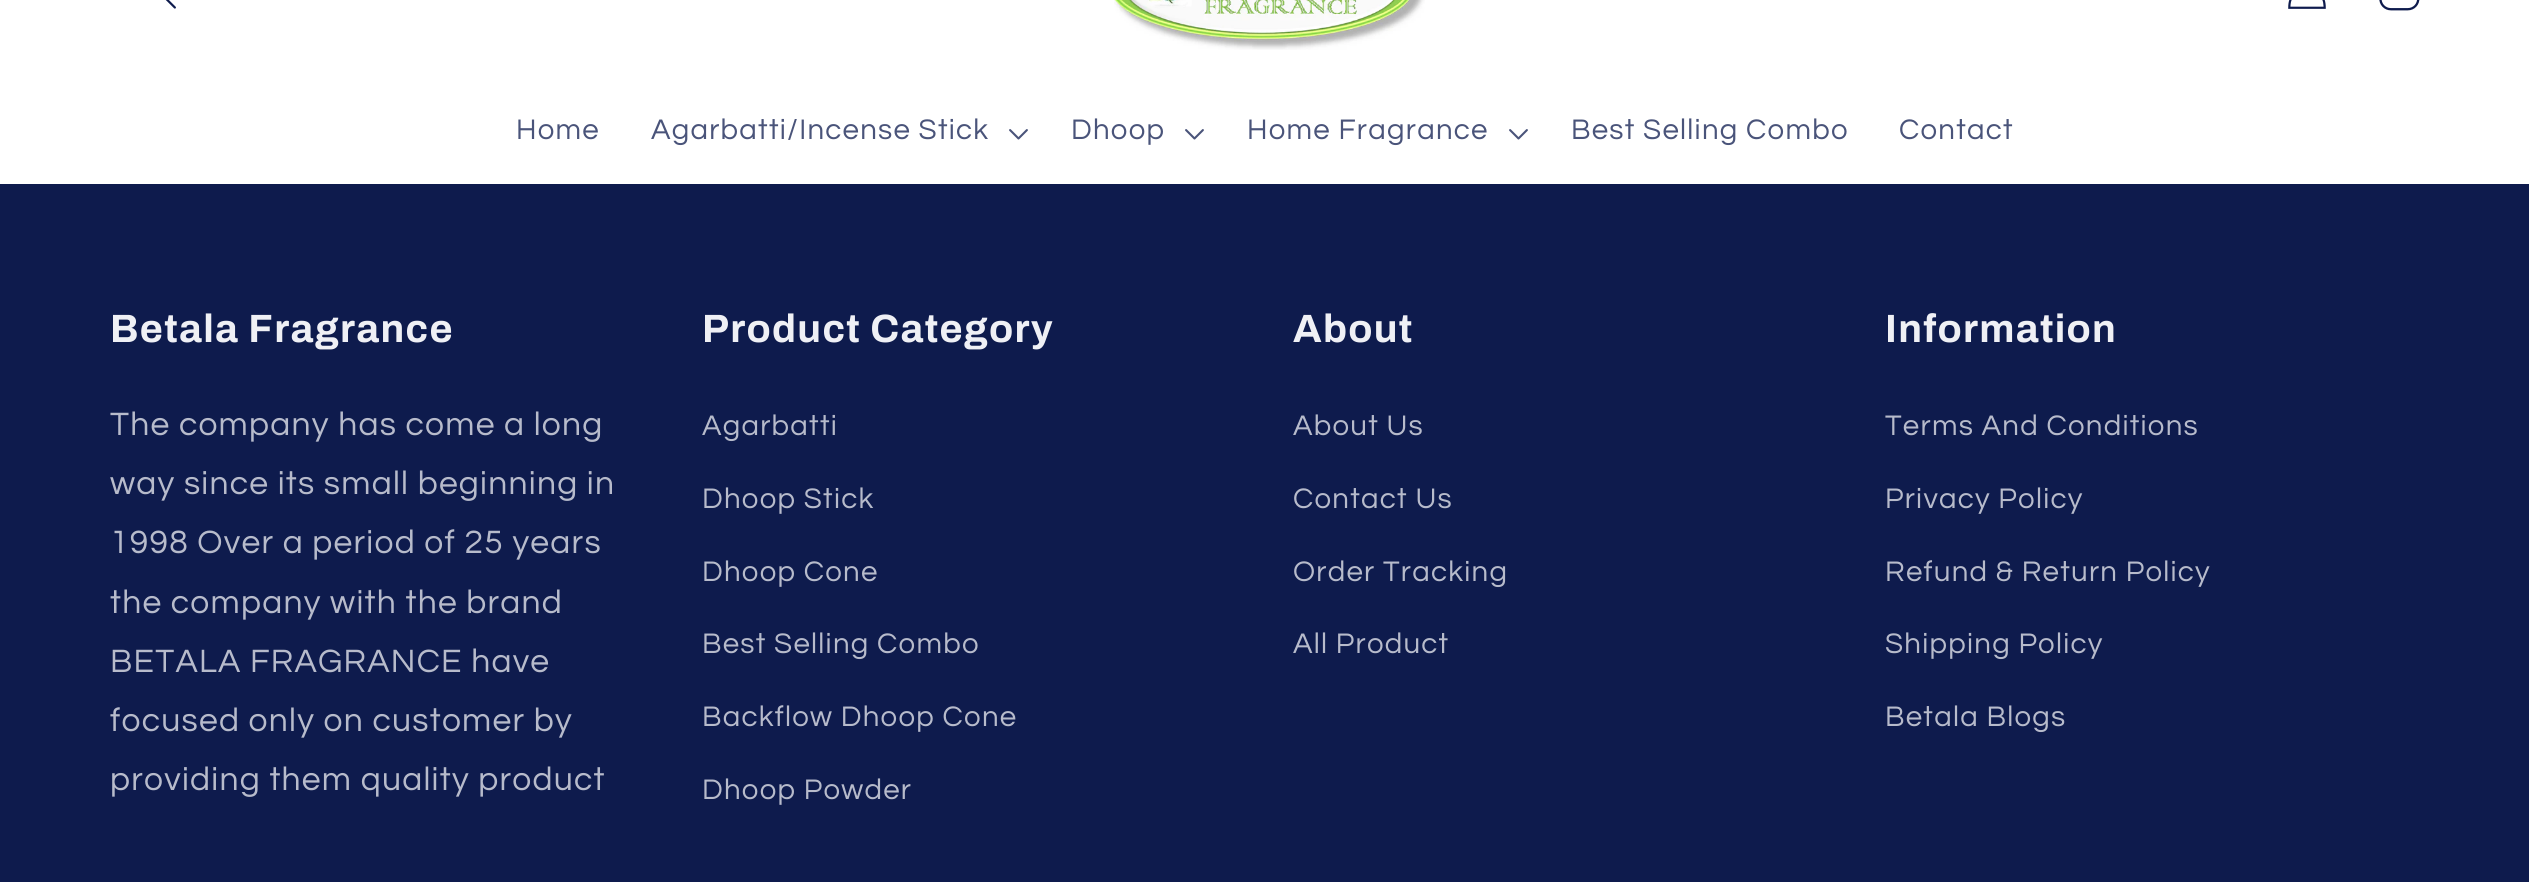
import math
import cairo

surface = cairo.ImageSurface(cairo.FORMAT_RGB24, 2529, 882)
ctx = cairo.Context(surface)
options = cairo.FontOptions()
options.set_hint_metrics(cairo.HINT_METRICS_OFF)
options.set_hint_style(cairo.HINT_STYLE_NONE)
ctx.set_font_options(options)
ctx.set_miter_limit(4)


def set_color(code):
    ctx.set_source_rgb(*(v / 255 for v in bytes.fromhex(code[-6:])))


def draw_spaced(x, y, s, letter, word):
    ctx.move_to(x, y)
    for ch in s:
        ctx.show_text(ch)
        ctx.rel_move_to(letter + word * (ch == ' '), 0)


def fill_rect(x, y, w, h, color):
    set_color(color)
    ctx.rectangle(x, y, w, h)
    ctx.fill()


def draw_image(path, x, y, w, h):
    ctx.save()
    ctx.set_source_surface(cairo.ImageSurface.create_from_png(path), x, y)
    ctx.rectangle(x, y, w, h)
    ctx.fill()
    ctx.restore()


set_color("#0e1b4d")
ctx.paint()
fill_rect(0, 0, 2529, 184, "#ffffff")
draw_image("assets/img1.png", 165, 0, 11, 9)
draw_image("assets/img2.png", 1114, 0, 311, 50)
draw_image("assets/img3.png", 2288, 0, 38, 9)
draw_image("assets/img4.png", 2379, 0, 41, 11)
ctx.select_font_face("Questrial")
ctx.set_font_size(29.4)
set_color("#4a547a")
draw_spaced(516, 139, "Home", 1.25, 0)
draw_spaced(651, 139, "Agarbatti/Incense Stick", 1.25, 0)
draw_image("assets/img5.png", 1009, 129, 19, 11)
draw_spaced(1071, 139, "Dhoop", 1.25, 0)
draw_image("assets/img5.png", 1185, 129, 19, 11)
draw_spaced(1247, 139, "Home Fragrance", 1.25, 0)
draw_image("assets/img5.png", 1509, 129, 19, 11)
draw_spaced(1571, 139, "Best Selling Combo", 1.25, 0)
draw_spaced(1899, 139, "Contact", 1.25, 0)
ctx.select_font_face("Archivo", cairo.FONT_SLANT_NORMAL, cairo.FONT_WEIGHT_BOLD)
ctx.set_font_size(39.5)
set_color("#eff0f5")
draw_spaced(110, 342, "Betala Fragrance", 1.3, 0)
ctx.select_font_face("Questrial")
ctx.set_font_size(33.6)
set_color("#b7bbcb")
draw_spaced(110, 435, "The company has come a long", 1.25, 0)
draw_spaced(110, 494, "way since its small beginning in", 1.25, 0)
draw_spaced(110, 553, "1998 Over a period of 25 years", 1.25, 0)
draw_spaced(110, 613, "the company with the brand", 1.25, 0)
draw_spaced(110, 672, "BETALA FRAGRANCE have", 1.25, 0)
draw_spaced(110, 731, "focused only on customer by", 1.25, 0)
draw_spaced(110, 790, "providing them quality product", 1.25, 0)
ctx.select_font_face("Archivo", cairo.FONT_SLANT_NORMAL, cairo.FONT_WEIGHT_BOLD)
ctx.set_font_size(39.5)
set_color("#eff0f5")
draw_spaced(702, 342, "Product Category", 1.3, 0)
ctx.select_font_face("Questrial")
ctx.set_font_size(29.4)
set_color("#b7bbcb")
draw_spaced(702, 435, "Agarbatti", 1.25, 0)
draw_spaced(702, 508, "Dhoop Stick", 1.25, 0)
draw_spaced(702, 581, "Dhoop Cone", 1.25, 0)
draw_spaced(702, 653, "Best Selling Combo", 1.25, 0)
draw_spaced(702, 726, "Backflow Dhoop Cone", 1.25, 0)
draw_spaced(702, 799, "Dhoop Powder", 1.25, 0)
ctx.select_font_face("Archivo", cairo.FONT_SLANT_NORMAL, cairo.FONT_WEIGHT_BOLD)
ctx.set_font_size(39.5)
set_color("#eff0f5")
draw_spaced(1293, 342, "About", 1.3, 0)
ctx.select_font_face("Questrial")
ctx.set_font_size(29.4)
set_color("#b7bbcb")
draw_spaced(1293, 435, "About Us", 1.25, 0)
draw_spaced(1293, 508, "Contact Us", 1.25, 0)
draw_spaced(1293, 581, "Order Tracking", 1.25, 0)
draw_spaced(1293, 653, "All Product", 1.25, 0)
ctx.select_font_face("Archivo", cairo.FONT_SLANT_NORMAL, cairo.FONT_WEIGHT_BOLD)
ctx.set_font_size(39.5)
set_color("#eff0f5")
draw_spaced(1885, 342, "Information", 1.3, 0)
ctx.select_font_face("Questrial")
ctx.set_font_size(29.4)
set_color("#b7bbcb")
draw_spaced(1885, 435, "Terms And Conditions", 1.25, 0)
draw_spaced(1885, 508, "Privacy Policy", 1.25, 0)
draw_spaced(1885, 581, "Refund & Return Policy", 1.25, 0)
draw_spaced(1885, 653, "Shipping Policy", 1.25, 0)
draw_spaced(1885, 726, "Betala Blogs", 1.25, 0)
surface.write_to_png("output.png")
